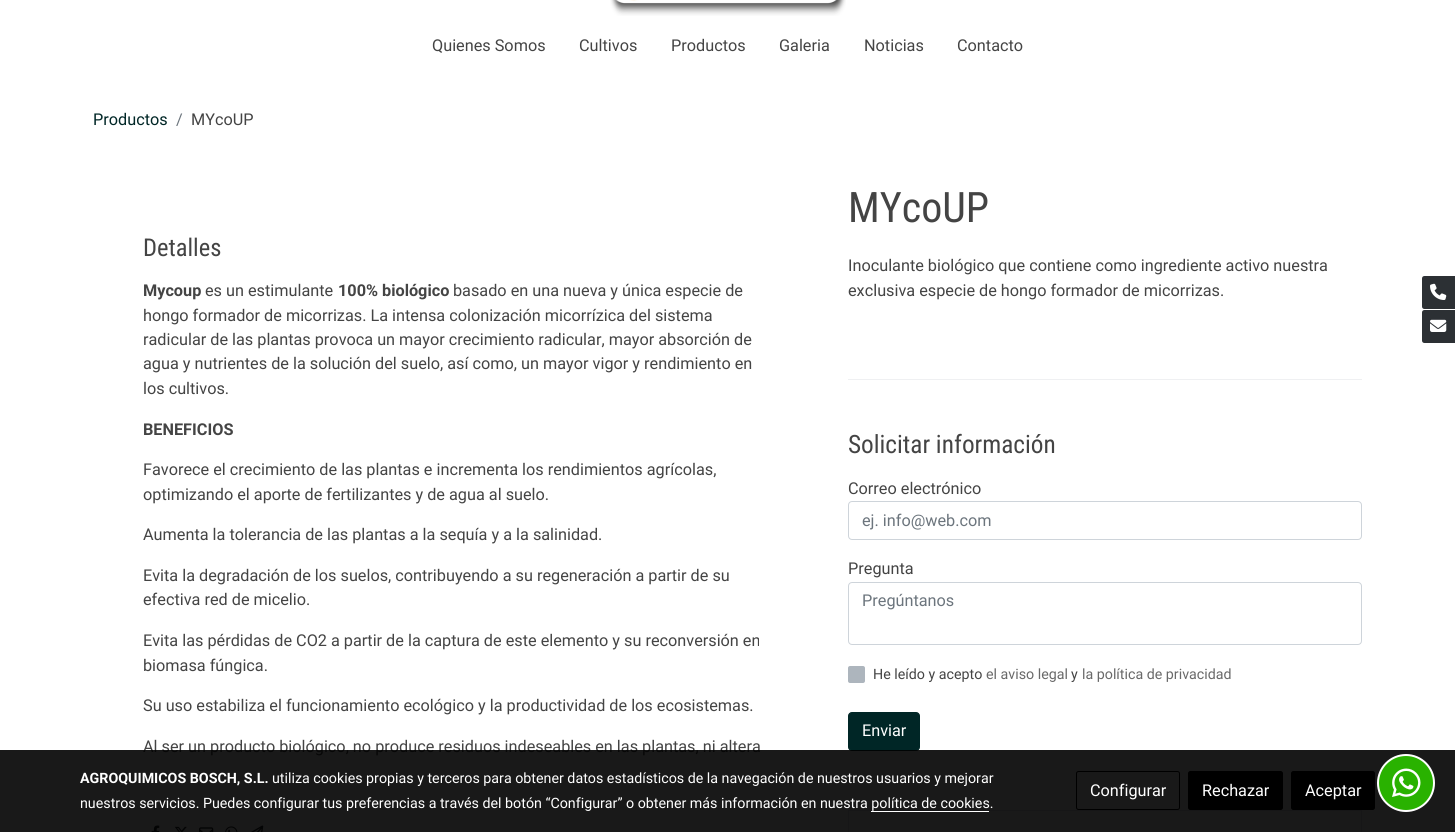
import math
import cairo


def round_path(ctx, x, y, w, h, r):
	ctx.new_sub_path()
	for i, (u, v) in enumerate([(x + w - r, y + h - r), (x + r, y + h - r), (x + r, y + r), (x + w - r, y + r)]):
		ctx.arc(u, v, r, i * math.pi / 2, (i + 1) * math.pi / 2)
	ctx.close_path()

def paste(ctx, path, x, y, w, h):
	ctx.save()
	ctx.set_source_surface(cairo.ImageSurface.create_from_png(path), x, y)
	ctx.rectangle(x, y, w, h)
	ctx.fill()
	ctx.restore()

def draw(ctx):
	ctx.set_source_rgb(1, 1, 1)
	ctx.paint()
	paste(ctx, 'media/1.png', 610, 0, 236, 16)
	ctx.select_font_face('Roboto')
	ctx.set_font_size(16.25)
	ctx.set_source_rgb(0.267, 0.267, 0.267)
	for x, y, s in [
		(432, 51, 'Quienes Somos'),
		(579, 51, 'Cultivos'),
		(671, 51, 'Productos'),
		(779, 51, 'Galeria'),
		(864, 51, 'Noticias'),
		(957, 51, 'Contacto'),
	]:
		ctx.move_to(x, y)
		ctx.show_text(s)
	ctx.set_source_rgb(0, 0.149, 0.149)
	ctx.move_to(93, 125)
	ctx.show_text('Productos')
	ctx.set_source_rgb(0.424, 0.459, 0.49)
	ctx.move_to(176, 125)
	ctx.show_text('/')
	ctx.set_source_rgb(0.267, 0.267, 0.267)
	ctx.move_to(191, 125)
	ctx.show_text('MYcoUP')
	ctx.select_font_face('Roboto Condensed')
	ctx.set_font_size(24.5)
	ctx.move_to(143, 256)
	ctx.show_text('Detalles')
	ctx.select_font_face('Roboto', cairo.FONT_SLANT_NORMAL, cairo.FONT_WEIGHT_BOLD)
	ctx.set_font_size(16.25)
	ctx.move_to(143, 296)
	ctx.show_text('Mycoup')
	ctx.select_font_face('Roboto')
	ctx.move_to(205, 296)
	ctx.show_text('es un estimulante')
	ctx.select_font_face('Roboto', cairo.FONT_SLANT_NORMAL, cairo.FONT_WEIGHT_BOLD)
	ctx.move_to(338, 296)
	ctx.show_text('100% biológico')
	ctx.select_font_face('Roboto')
	for x, y, s in [
		(453, 296, 'basado en una nueva y única especie de'),
		(143, 321, 'hongo formador de micorrizas. La intensa colonización micorrízica del sistema'),
		(143, 345, 'radicular de las plantas provoca un mayor crecimiento radicular, mayor absorción de'),
		(143, 369, 'agua y nutrientes de la solución del suelo, así como, un mayor vigor y rendimiento en'),
		(143, 394, 'los cultivos.'),
	]:
		ctx.move_to(x, y)
		ctx.show_text(s)
	ctx.select_font_face('Roboto', cairo.FONT_SLANT_NORMAL, cairo.FONT_WEIGHT_BOLD)
	ctx.move_to(143, 435)
	ctx.show_text('BENEFICIOS')
	ctx.select_font_face('Roboto')
	for x, y, s in [
		(143, 475, 'Favorece el crecimiento de las plantas e incrementa los rendimientos agrícolas,'),
		(143, 500, 'optimizando el aporte de fertilizantes y de agua al suelo.'),
		(143, 540, 'Aumenta la tolerancia de las plantas a la sequía y a la salinidad.'),
		(143, 581, 'Evita la degradación de los suelos, contribuyendo a su regeneración a partir de su'),
		(143, 605, 'efectiva red de micelio.'),
		(143, 646, 'Evita las pérdidas de CO2 a partir de la captura de este elemento y su reconversión en'),
		(143, 671, 'biomasa fúngica.'),
		(143, 711, 'Su uso estabiliza el funcionamiento ecológico y la productividad de los ecosistemas.'),
		(143, 752, 'Al ser un producto biológico, no produce residuos indeseables en las plantas, ni altera'),
	]:
		ctx.move_to(x, y)
		ctx.show_text(s)
	paste(ctx, 'media/2.png', 151, 825, 9, 7)
	paste(ctx, 'media/3.png', 174, 826, 13, 6)
	paste(ctx, 'media/4.png', 199, 827, 15, 5)
	paste(ctx, 'media/5.png', 225, 826, 13, 6)
	paste(ctx, 'media/6.png', 251, 825, 13, 7)
	ctx.select_font_face('Roboto Condensed')
	ctx.set_font_size(42)
	ctx.move_to(848, 222)
	ctx.show_text('MYcoUP')
	ctx.select_font_face('Roboto')
	ctx.set_font_size(16.25)
	ctx.move_to(848, 271)
	ctx.show_text('Inoculante biológico que contiene como ingrediente activo nuestra')
	ctx.move_to(848, 296)
	ctx.show_text('exclusiva especie de hongo formador de micorrizas.')
	ctx.set_source_rgb(0.937, 0.941, 0.949)
	ctx.rectangle(848, 379, 514, 1)
	ctx.fill()
	ctx.select_font_face('Roboto Condensed')
	ctx.set_font_size(25.25)
	ctx.set_source_rgb(0.267, 0.267, 0.267)
	ctx.move_to(848, 453)
	ctx.show_text('Solicitar información')
	ctx.select_font_face('Roboto')
	ctx.set_font_size(16.25)
	ctx.move_to(848, 494)
	ctx.show_text('Correo electrónico')
	round_path(ctx, 848.5, 501.5, 513, 38, 3.5)
	ctx.set_source_rgb(0.808, 0.831, 0.855)
	ctx.set_line_width(1)
	ctx.stroke()
	ctx.set_source_rgb(0.424, 0.459, 0.49)
	ctx.move_to(862, 526)
	ctx.show_text('ej. info@web.com')
	ctx.set_source_rgb(0.267, 0.267, 0.267)
	ctx.move_to(848, 574)
	ctx.show_text('Pregunta')
	round_path(ctx, 848.5, 582.5, 513, 62, 3.5)
	ctx.set_source_rgb(0.808, 0.831, 0.855)
	ctx.stroke()
	ctx.set_source_rgb(0.424, 0.459, 0.49)
	ctx.move_to(862, 606)
	ctx.show_text('Pregúntanos')
	ctx.set_source_rgb(0.678, 0.71, 0.741)
	round_path(ctx, 848, 666, 17, 17, 2)
	ctx.fill()
	ctx.set_font_size(14.25)
	ctx.set_source_rgb(0.267, 0.267, 0.267)
	ctx.move_to(873, 679)
	ctx.show_text('He leído y acepto')
	ctx.set_source_rgb(0.412, 0.412, 0.412)
	ctx.move_to(986, 679)
	ctx.show_text('el aviso legal')
	ctx.set_source_rgb(0.267, 0.267, 0.267)
	ctx.move_to(1071, 679)
	ctx.show_text('y')
	ctx.set_source_rgb(0.412, 0.412, 0.412)
	ctx.move_to(1082, 679)
	ctx.show_text('la política de privacidad')
	ctx.set_source_rgb(0, 0.149, 0.149)
	round_path(ctx, 848.5, 712.5, 71, 38, 3.5)
	ctx.fill_preserve()
	ctx.stroke()
	ctx.set_font_size(16.25)
	ctx.set_source_rgb(1, 1, 1)
	ctx.move_to(862, 736)
	ctx.show_text('Enviar')
	ctx.rectangle(848.5, 810.5, 513, 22)
	ctx.set_source_rgb(0.871, 0.886, 0.902)
	ctx.stroke()
	ctx.set_source_rgb(0.173, 0.188, 0.204)
	ctx.new_path()
	ctx.move_to(1424.5, 276)
	ctx.line_to(1455, 276)
	ctx.line_to(1455, 309)
	ctx.line_to(1424.5, 309)
	ctx.curve_to(1423, 309, 1422, 308, 1422, 306.5)
	ctx.line_to(1422, 278.5)
	ctx.curve_to(1422, 277, 1423, 276, 1424.5, 276)
	ctx.close_path()
	ctx.fill()
	paste(ctx, 'media/7.png', 1430, 283, 17, 17)
	ctx.new_path()
	ctx.move_to(1424.5, 310)
	ctx.line_to(1455, 310)
	ctx.line_to(1455, 343)
	ctx.line_to(1424.5, 343)
	ctx.curve_to(1423, 343, 1422, 342, 1422, 340.5)
	ctx.line_to(1422, 312.5)
	ctx.curve_to(1422, 311, 1423, 310, 1424.5, 310)
	ctx.close_path()
	ctx.fill()
	paste(ctx, 'media/8.png', 1430, 319, 17, 13)
	ctx.set_source_rgba(0, 0, 0, 0.9)
	ctx.rectangle(0, 750, 1455, 82)
	ctx.fill()
	ctx.select_font_face('Roboto', cairo.FONT_SLANT_NORMAL, cairo.FONT_WEIGHT_BOLD)
	ctx.set_font_size(14.25)
	ctx.set_source_rgb(1, 1, 1)
	ctx.move_to(80, 783)
	ctx.show_text('AGROQUIMICOS BOSCH, S.L.')
	ctx.select_font_face('Roboto')
	ctx.move_to(272, 783)
	ctx.show_text('utiliza cookies propias y terceros para obtener datos estadísticos de la navegación de nuestros usuarios y mejorar')
	ctx.move_to(80, 808)
	ctx.show_text('nuestros servicios. Puedes configurar tus preferencias a través del botón “Configurar” o obtener más información en nuestra política de cookies.')
	ctx.rectangle(871, 811, 118, 1)
	ctx.fill()
	round_path(ctx, 1076.5, 771.5, 103, 38, 2)
	ctx.set_source_rgb(0, 0, 0)
	ctx.stroke()
	ctx.set_font_size(16.25)
	ctx.set_source_rgb(1, 1, 1)
	ctx.move_to(1090, 796)
	ctx.show_text('Configurar')
	ctx.set_source_rgb(0, 0, 0)
	round_path(ctx, 1188.5, 771.5, 94, 38, 2)
	ctx.fill_preserve()
	ctx.stroke()
	ctx.set_source_rgb(1, 1, 1)
	ctx.move_to(1202, 796)
	ctx.show_text('Rechazar')
	ctx.set_source_rgb(0, 0, 0)
	round_path(ctx, 1291.5, 771.5, 83, 38, 2)
	ctx.fill_preserve()
	ctx.stroke()
	ctx.set_source_rgb(1, 1, 1)
	ctx.move_to(1305, 796)
	ctx.show_text('Aceptar')
	ctx.set_source_rgb(0.161, 0.698, 0)
	ctx.new_path()
	ctx.arc(1406, 783, 28, 0, 2 * math.pi)
	ctx.fill_preserve()
	ctx.set_source_rgb(1, 1, 1)
	ctx.set_line_width(2)
	ctx.stroke()
	paste(ctx, 'media/9.png', 1392, 768, 29, 29)


surface = cairo.ImageSurface(cairo.FORMAT_RGB24, 1455, 832)
ctx = cairo.Context(surface)
options = cairo.FontOptions()
options.set_hint_metrics(cairo.HINT_METRICS_OFF)
options.set_hint_style(cairo.HINT_STYLE_NONE)
ctx.set_font_options(options)
ctx.set_miter_limit(4)
draw(ctx)
surface.write_to_png('image.png')
